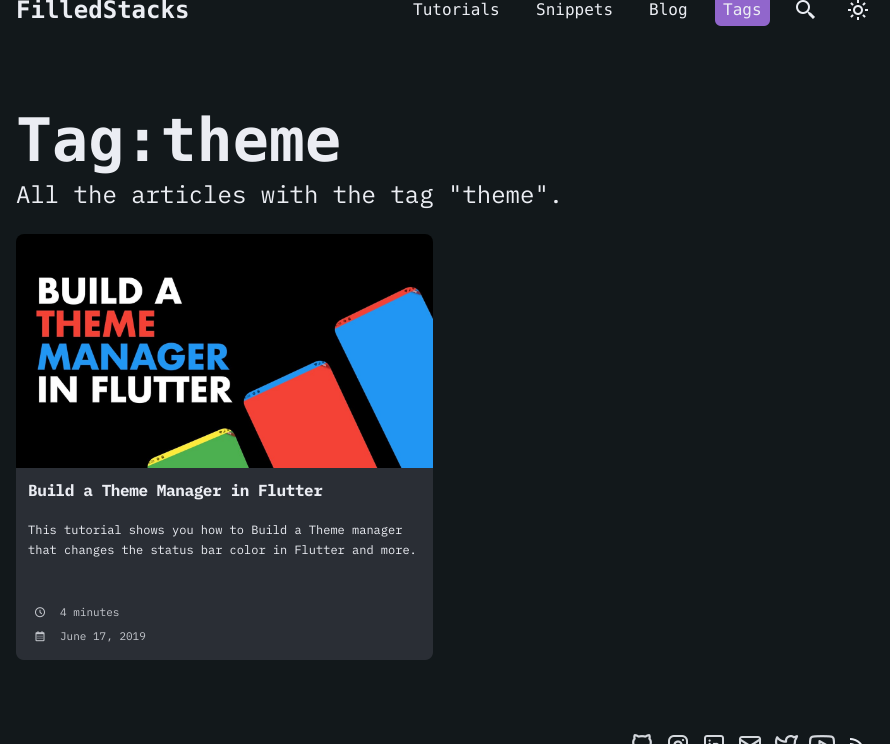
import math
import cairo


def write_spaced(ctx, x, y, s, letter, word):
	ctx.move_to(x, y)
	for ch in s:
		ctx.show_text(ch)
		ctx.rel_move_to(letter + word * (ch == ' '), 0)

def round_path(ctx, x, y, w, h, r):
	ctx.new_sub_path()
	for i, (u, v) in enumerate([(x + w - r, y + h - r), (x + r, y + h - r), (x + r, y + r), (x + w - r, y + r)]):
		ctx.arc(u, v, r, i * math.pi / 2, (i + 1) * math.pi / 2)
	ctx.close_path()

def paste(ctx, path, x, y, w, h):
	ctx.save()
	ctx.set_source_surface(cairo.ImageSurface.create_from_png(path), x, y)
	ctx.rectangle(x, y, w, h)
	ctx.fill()
	ctx.restore()

def draw(ctx):
	ctx.set_source_rgb(0.071, 0.094, 0.106)
	ctx.paint()
	ctx.select_font_face('DejaVu Sans Mono', cairo.FONT_SLANT_NORMAL, cairo.FONT_WEIGHT_BOLD)
	ctx.set_font_size(24)
	ctx.set_source_rgb(0.918, 0.929, 0.953)
	ctx.move_to(16, 18)
	ctx.show_text('FilledStacks')
	ctx.select_font_face('DejaVu Sans Mono')
	ctx.set_font_size(16)
	for x, y, s in [
		(413, 15, 'Tutorials'),
		(536, 15, 'Snippets'),
		(649, 15, 'Blog'),
	]:
		ctx.move_to(x, y)
		ctx.show_text(s)
	ctx.set_source_rgb(0.569, 0.4, 0.8)
	round_path(ctx, 715, -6, 55, 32, 6)
	ctx.fill()
	ctx.set_source_rgb(0.918, 0.929, 0.953)
	ctx.move_to(723, 15)
	ctx.show_text('Tags')
	paste(ctx, 'media/1.png', 796, 0, 19, 19)
	paste(ctx, 'media/2.png', 848, 0, 20, 20)
	ctx.select_font_face('DejaVu Sans Mono', cairo.FONT_SLANT_NORMAL, cairo.FONT_WEIGHT_BOLD)
	ctx.set_font_size(60)
	ctx.move_to(16, 161)
	ctx.show_text('Tag:theme')
	ctx.select_font_face('IBM Plex Mono')
	ctx.set_font_size(24)
	ctx.move_to(16, 203)
	ctx.show_text('All the articles with the tag "theme".')
	paste(ctx, 'media/3.png', 16, 234, 417, 234)
	ctx.set_source_rgb(0.165, 0.18, 0.208)
	ctx.new_path()
	ctx.move_to(16, 468)
	ctx.line_to(433, 468)
	ctx.line_to(433, 652)
	ctx.curve_to(433, 656.5, 429.5, 660, 425, 660)
	ctx.line_to(24, 660)
	ctx.curve_to(19.5, 660, 16, 656.5, 16, 652)
	ctx.close_path()
	ctx.fill()
	ctx.select_font_face('IBM Plex Mono', cairo.FONT_SLANT_NORMAL, cairo.FONT_WEIGHT_BOLD)
	ctx.set_font_size(16)
	ctx.set_source_rgb(0.918, 0.929, 0.953)
	write_spaced(ctx, 28, 496, 'Build a Theme Manager in Flutter', -0.4, 0)
	ctx.select_font_face('IBM Plex Mono')
	ctx.set_font_size(12)
	ctx.move_to(28, 534)
	ctx.show_text('This tutorial shows you how to Build a Theme manager')
	ctx.move_to(28, 554)
	ctx.show_text('that changes the status bar color in Flutter and more.')
	paste(ctx, 'media/4.png', 35, 607, 10, 11)
	ctx.set_font_size(11)
	ctx.set_source_rgb(0.769, 0.78, 0.804)
	ctx.move_to(60, 616)
	ctx.show_text('4 minutes')
	paste(ctx, 'media/5.png', 35, 631, 10, 11)
	ctx.move_to(60, 640)
	ctx.show_text('June 17, 2019')
	paste(ctx, 'media/6.png', 632, 734, 20, 10)
	round_path(ctx, 669, 736, 18, 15, 5)
	ctx.set_source_rgb(0.831, 0.847, 0.867)
	ctx.stroke()
	ctx.arc(678, 745, 3.5, 0, 2 * math.pi)
	ctx.set_line_width(2.2)
	ctx.stroke()
	ctx.new_path()
	ctx.move_to(683, 740)
	ctx.line_to(683, 740)
	ctx.set_line_cap(cairo.LINE_CAP_ROUND)
	ctx.set_line_join(cairo.LINE_JOIN_ROUND)
	ctx.stroke()
	paste(ctx, 'media/7.png', 704, 735, 20, 9)
	round_path(ctx, 740, 737, 20, 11, 2)
	ctx.set_line_width(2)
	ctx.set_line_cap(cairo.LINE_CAP_BUTT)
	ctx.set_line_join(cairo.LINE_JOIN_MITER)
	ctx.stroke()
	ctx.new_path()
	ctx.move_to(740, 739.5)
	ctx.line_to(750, 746)
	ctx.line_to(760, 739.5)
	ctx.set_line_width(2.2)
	ctx.set_line_cap(cairo.LINE_CAP_ROUND)
	ctx.set_line_join(cairo.LINE_JOIN_ROUND)
	ctx.stroke()
	paste(ctx, 'media/8.png', 774, 735, 25, 9)
	paste(ctx, 'media/9.png', 809, 735, 26, 9)
	paste(ctx, 'media/10.png', 850, 738, 12, 6)


surface = cairo.ImageSurface(cairo.FORMAT_RGB24, 890, 744)
ctx = cairo.Context(surface)
options = cairo.FontOptions()
options.set_hint_metrics(cairo.HINT_METRICS_OFF)
options.set_hint_style(cairo.HINT_STYLE_NONE)
ctx.set_font_options(options)
ctx.set_miter_limit(4)
draw(ctx)
surface.write_to_png('image.png')
